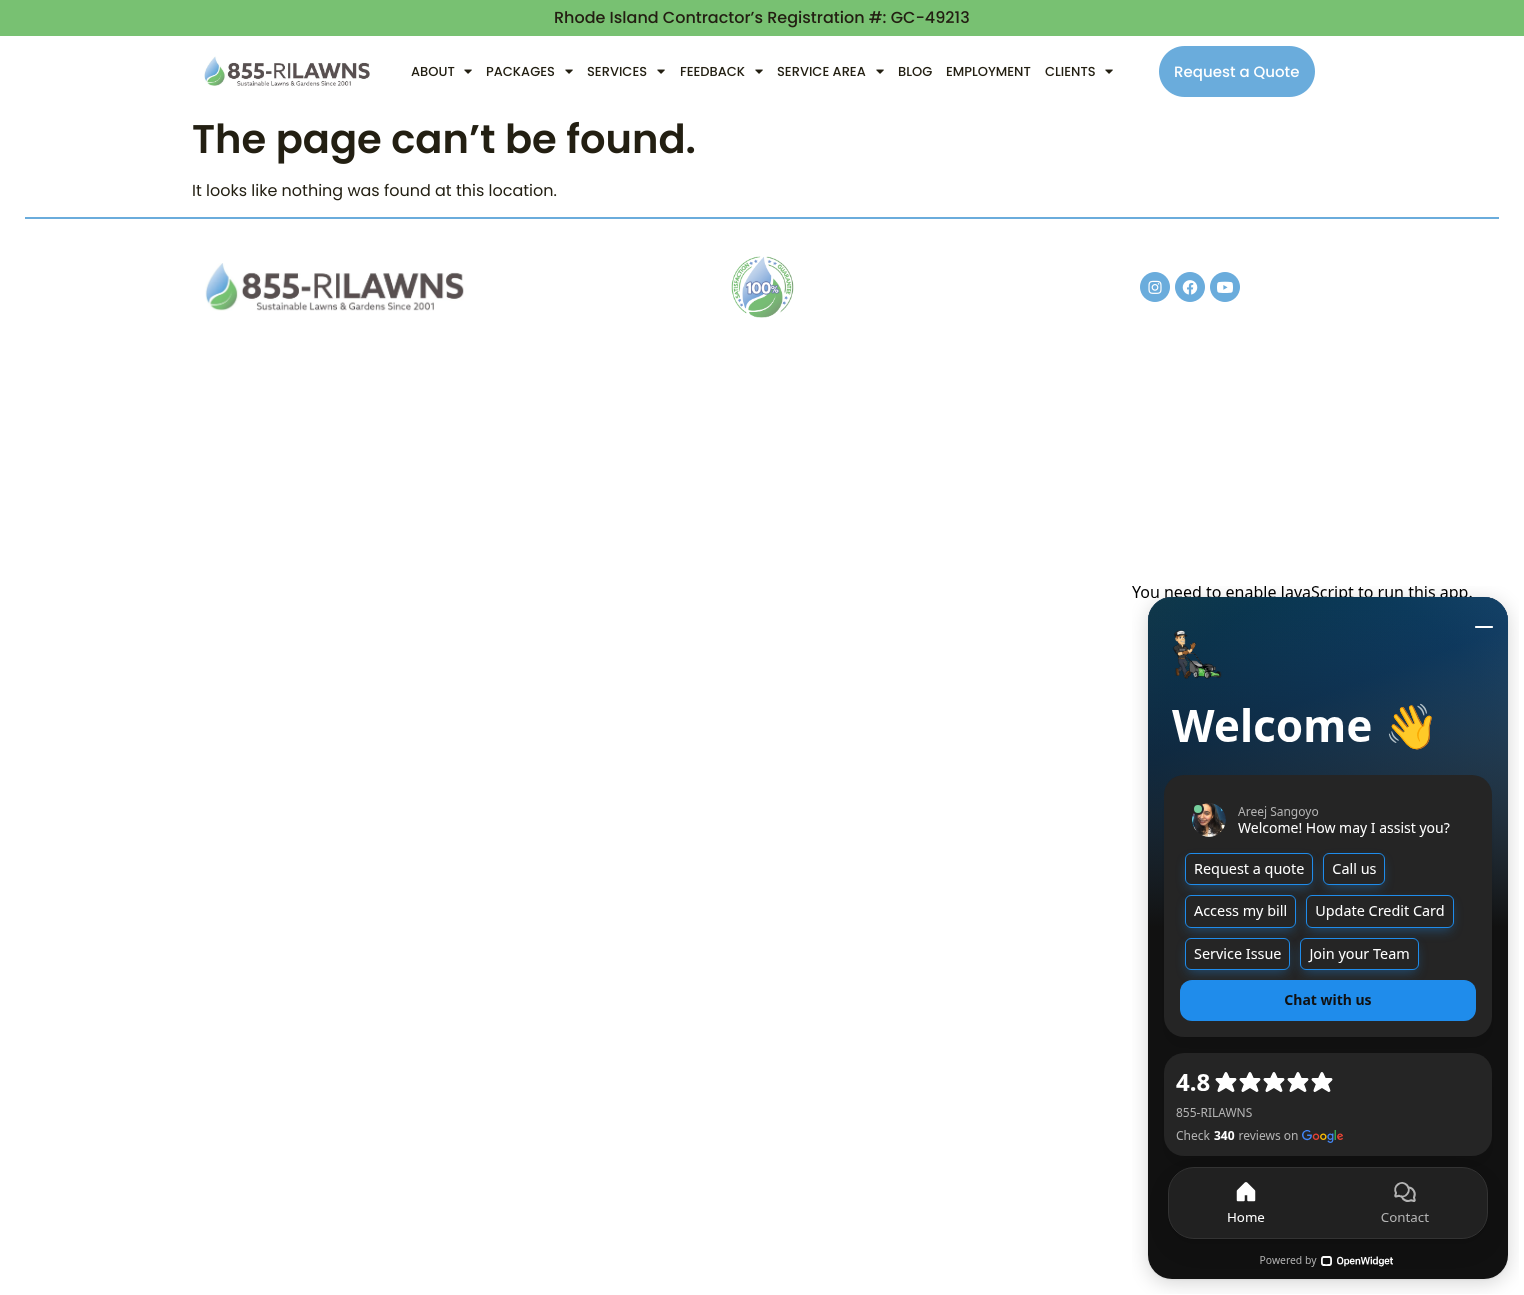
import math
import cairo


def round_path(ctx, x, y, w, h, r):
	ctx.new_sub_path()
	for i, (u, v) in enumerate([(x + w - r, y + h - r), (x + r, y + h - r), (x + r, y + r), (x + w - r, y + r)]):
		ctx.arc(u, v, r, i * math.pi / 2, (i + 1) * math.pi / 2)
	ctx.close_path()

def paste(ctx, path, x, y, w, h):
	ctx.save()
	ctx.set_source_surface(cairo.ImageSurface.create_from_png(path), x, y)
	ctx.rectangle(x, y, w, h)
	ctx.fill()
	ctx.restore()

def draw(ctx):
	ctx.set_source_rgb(1, 1, 1)
	ctx.paint()
	ctx.set_source_rgb(0.471, 0.757, 0.447)
	ctx.rectangle(0, 0, 1524, 36)
	ctx.fill()
	ctx.select_font_face('Poppins Medium')
	ctx.set_font_size(16)
	ctx.set_source_rgb(0.137, 0.122, 0.071)
	ctx.move_to(554, 23)
	ctx.show_text('Rhode Island Contractor’s Registration #: GC-49213')
	paste(ctx, 'media/1.png', 204, 56, 166, 30)
	ctx.set_font_size(13)
	ctx.move_to(411, 76)
	ctx.show_text('ABOUT')
	paste(ctx, 'media/2.png', 464, 69, 8, 5)
	ctx.move_to(486, 76)
	ctx.show_text('PACKAGES')
	paste(ctx, 'media/2.png', 565, 69, 8, 5)
	ctx.move_to(587, 76)
	ctx.show_text('SERVICES')
	paste(ctx, 'media/2.png', 657, 69, 8, 5)
	ctx.move_to(680, 76)
	ctx.show_text('FEEDBACK')
	paste(ctx, 'media/2.png', 755, 69, 8, 5)
	ctx.move_to(777, 76)
	ctx.show_text('SERVICE AREA')
	paste(ctx, 'media/2.png', 876, 69, 8, 5)
	for x, y, s in [
		(898, 76, 'BLOG'),
		(946, 76, 'EMPLOYMENT'),
		(1045, 76, 'CLIENTS'),
	]:
		ctx.move_to(x, y)
		ctx.show_text(s)
	paste(ctx, 'media/2.png', 1105, 69, 8, 5)
	ctx.set_source_rgb(0.416, 0.675, 0.863)
	round_path(ctx, 1159, 46, 156, 51, 25.5)
	ctx.fill()
	ctx.set_font_size(15)
	ctx.set_source_rgb(1, 1, 1)
	ctx.move_to(1174, 77)
	ctx.show_text('Request a Quote')
	ctx.select_font_face('Poppins SemiBold')
	ctx.set_font_size(40)
	ctx.set_source_rgb(0.137, 0.122, 0.071)
	ctx.move_to(192, 153)
	ctx.show_text('The page can’t be found.')
	ctx.select_font_face('Poppins')
	ctx.set_font_size(16)
	ctx.move_to(192, 196)
	ctx.show_text('It looks like nothing was found at this location.')
	ctx.set_source_rgb(0.416, 0.675, 0.863)
	ctx.rectangle(25, 217, 1474, 2)
	ctx.fill()
	paste(ctx, 'media/3.png', 205, 263, 259, 48)
	paste(ctx, 'media/4.png', 731, 256, 63, 62)
	ctx.arc(1155, 287, 15, 0, 2 * math.pi)
	ctx.fill()
	paste(ctx, 'media/5.png', 1148, 280, 14, 14)
	ctx.arc(1190, 287, 15, 0, 2 * math.pi)
	ctx.fill()
	paste(ctx, 'media/6.png', 1182, 280, 16, 15)
	ctx.arc(1225, 287, 15, 0, 2 * math.pi)
	ctx.fill()
	paste(ctx, 'media/7.png', 1217, 281, 16, 12)
	paste(ctx, 'media/8.png', 1132, 586, 387, 708)


surface = cairo.ImageSurface(cairo.FORMAT_RGB24, 1524, 1295)
ctx = cairo.Context(surface)
options = cairo.FontOptions()
options.set_hint_metrics(cairo.HINT_METRICS_OFF)
options.set_hint_style(cairo.HINT_STYLE_NONE)
ctx.set_font_options(options)
ctx.set_miter_limit(4)
draw(ctx)
surface.write_to_png('image.png')
